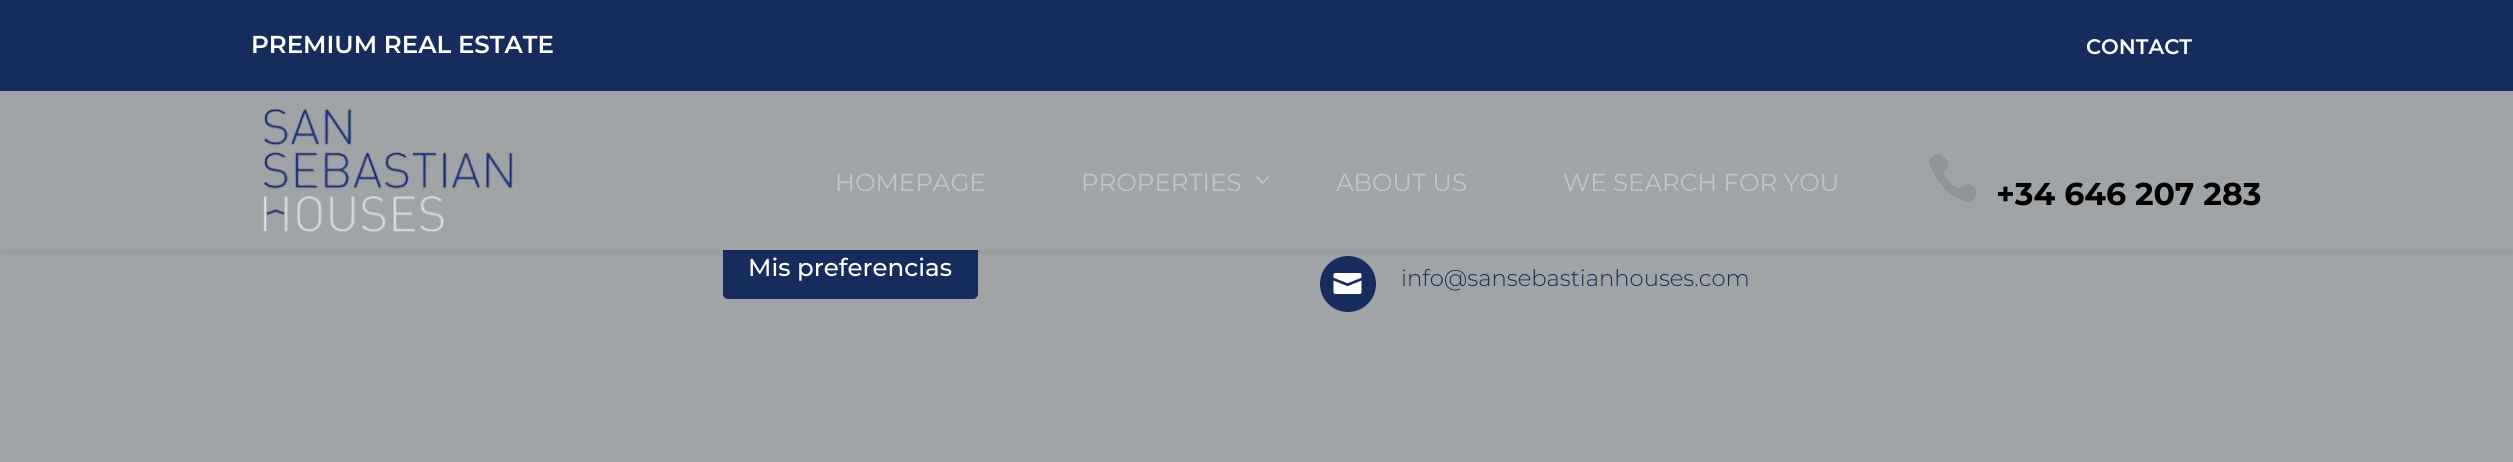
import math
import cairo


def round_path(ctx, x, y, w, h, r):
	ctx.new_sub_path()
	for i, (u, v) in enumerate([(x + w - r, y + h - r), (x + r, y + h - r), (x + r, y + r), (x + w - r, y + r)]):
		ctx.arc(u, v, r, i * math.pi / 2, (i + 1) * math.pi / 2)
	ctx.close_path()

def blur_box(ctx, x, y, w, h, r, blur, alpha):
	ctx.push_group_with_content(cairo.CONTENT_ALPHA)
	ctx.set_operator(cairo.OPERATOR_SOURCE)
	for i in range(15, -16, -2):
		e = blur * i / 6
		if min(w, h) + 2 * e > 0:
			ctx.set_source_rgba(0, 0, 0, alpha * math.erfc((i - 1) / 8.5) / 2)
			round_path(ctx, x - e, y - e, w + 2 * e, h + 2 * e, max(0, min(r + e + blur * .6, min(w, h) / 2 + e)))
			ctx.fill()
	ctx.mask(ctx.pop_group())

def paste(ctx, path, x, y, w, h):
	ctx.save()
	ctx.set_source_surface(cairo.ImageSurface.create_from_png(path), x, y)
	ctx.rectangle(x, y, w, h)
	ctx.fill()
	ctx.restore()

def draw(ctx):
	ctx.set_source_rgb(0.627, 0.643, 0.655)
	ctx.paint()
	ctx.set_source_rgb(0.086, 0.173, 0.365)
	ctx.rectangle(0, 0, 2513, 91)
	ctx.fill()
	ctx.select_font_face('Montserrat SemiBold')
	ctx.set_font_size(24.5)
	ctx.set_source_rgb(1, 1, 1)
	ctx.move_to(251, 53)
	ctx.show_text('PREMIUM REAL ESTATE')
	ctx.set_font_size(21)
	ctx.move_to(2086, 54)
	ctx.show_text('CONTACT')
	ctx.set_source_rgb(0.086, 0.173, 0.365)
	round_path(ctx, 724, 239, 253, 59, 4)
	ctx.fill_preserve()
	ctx.stroke()
	ctx.arc(1348, 284, 28, 0, 2 * math.pi)
	ctx.fill()
	ctx.set_source_rgb(0, 0, 0)
	blur_box(ctx, 0, 91, 2513, 159, 0, 6, 0.1)
	ctx.set_source_rgb(0.627, 0.643, 0.655)
	ctx.rectangle(0, 91, 2513, 159)
	ctx.fill()
	paste(ctx, 'media/1.png', 259, 108, 254, 124)
	ctx.select_font_face('Montserrat')
	ctx.set_font_size(24.5)
	ctx.set_source_rgb(0.769, 0.769, 0.769)
	ctx.move_to(835, 191)
	ctx.show_text('HOMEPAGE')
	ctx.move_to(1081, 191)
	ctx.show_text('PROPERTIES')
	paste(ctx, 'media/2.png', 1256, 176, 13, 8)
	ctx.move_to(1336, 191)
	ctx.show_text('ABOUT US')
	ctx.move_to(1563, 191)
	ctx.show_text('WE SEARCH FOR YOU')
	paste(ctx, 'media/3.png', 1929, 154, 48, 49)
	ctx.select_font_face('Montserrat', cairo.FONT_SLANT_NORMAL, cairo.FONT_WEIGHT_BOLD)
	ctx.set_font_size(31.5)
	ctx.set_source_rgb(0, 0, 0)
	ctx.move_to(1996, 205)
	ctx.show_text('+34 646 207 283')
	ctx.select_font_face('Montserrat Medium')
	ctx.set_font_size(24.5)
	ctx.set_source_rgb(1, 1, 1)
	ctx.move_to(748, 276)
	ctx.show_text('Mis preferencias')
	paste(ctx, 'media/4.png', 1333, 273, 29, 21)
	ctx.select_font_face('Montserrat Light')
	ctx.set_font_size(22.75)
	ctx.set_source_rgb(0.086, 0.173, 0.365)
	ctx.move_to(1401, 286)
	ctx.show_text('info@sansebastianhouses.com')


surface = cairo.ImageSurface(cairo.FORMAT_RGB24, 2513, 462)
ctx = cairo.Context(surface)
options = cairo.FontOptions()
options.set_hint_metrics(cairo.HINT_METRICS_OFF)
options.set_hint_style(cairo.HINT_STYLE_NONE)
ctx.set_font_options(options)
ctx.set_miter_limit(4)
draw(ctx)
surface.write_to_png('image.png')
